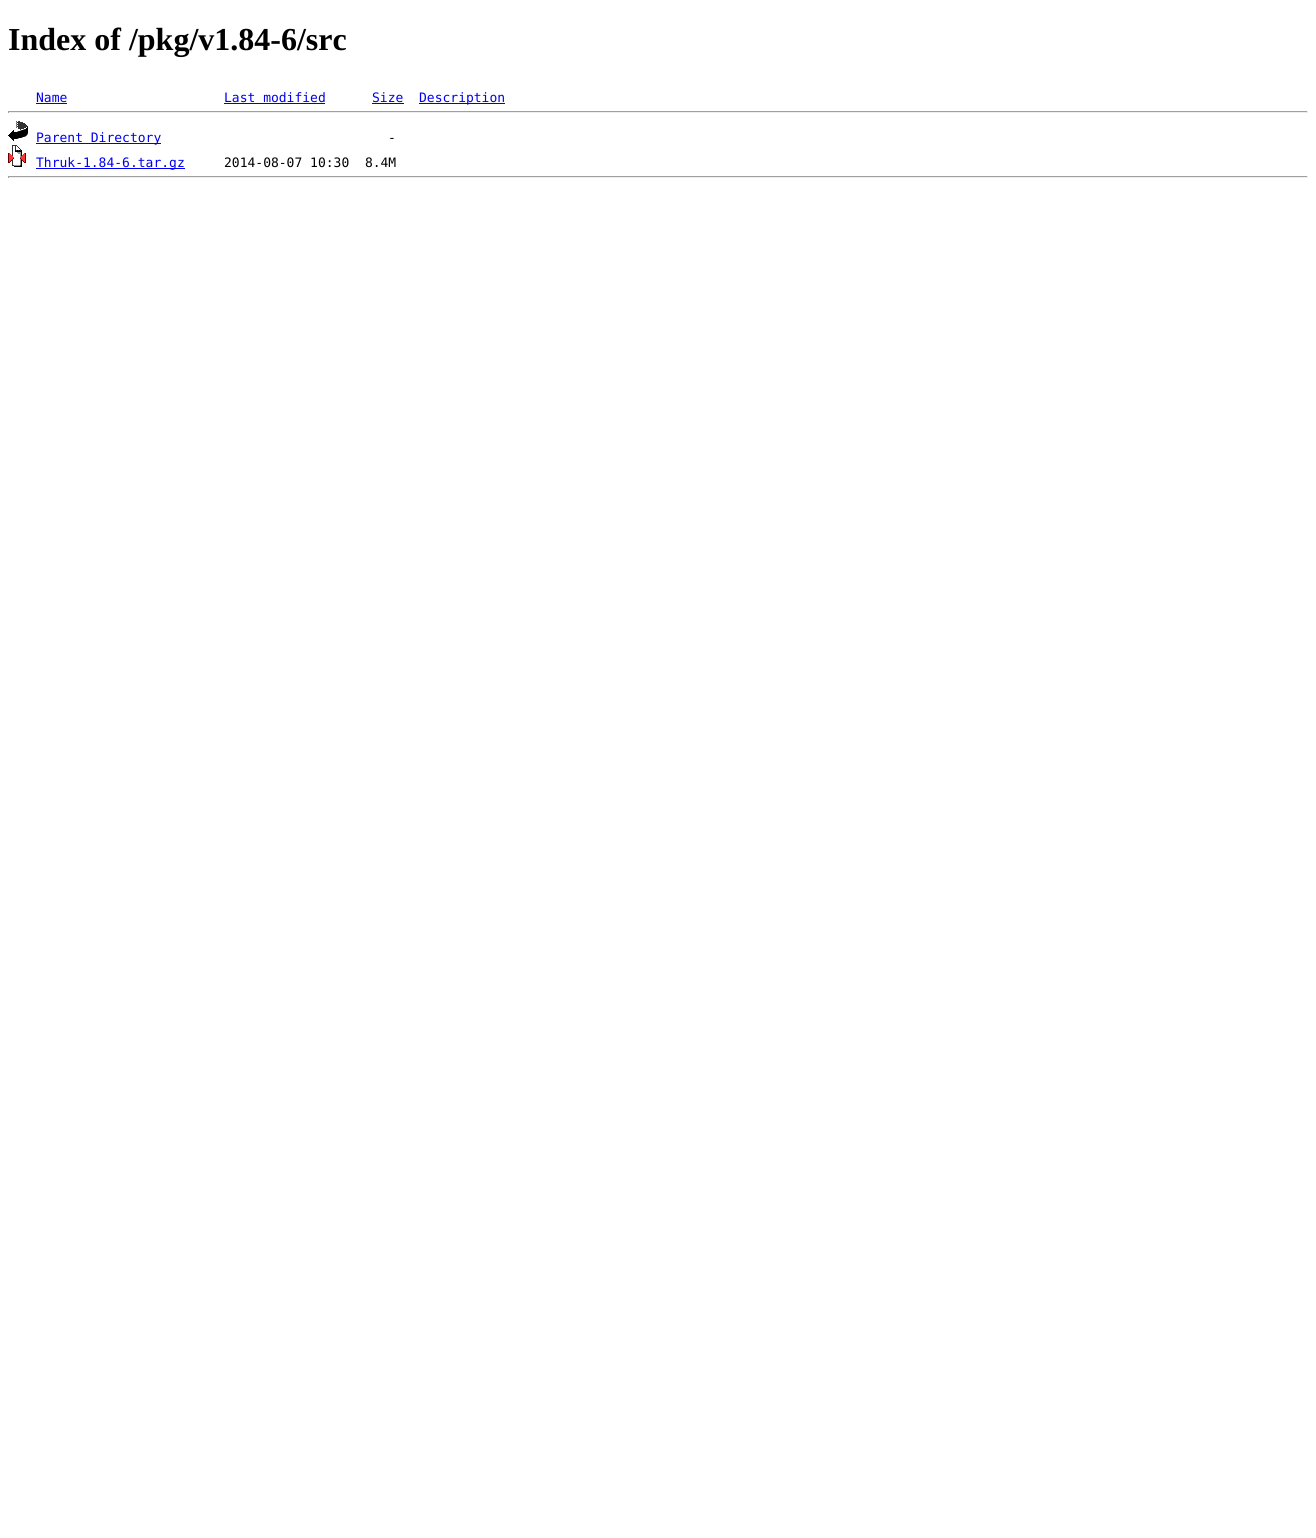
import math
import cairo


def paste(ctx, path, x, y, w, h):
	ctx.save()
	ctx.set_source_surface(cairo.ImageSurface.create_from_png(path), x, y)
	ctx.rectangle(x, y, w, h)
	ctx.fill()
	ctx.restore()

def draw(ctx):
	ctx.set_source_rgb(1, 1, 1)
	ctx.paint()
	ctx.select_font_face('Liberation Serif', cairo.FONT_SLANT_NORMAL, cairo.FONT_WEIGHT_BOLD)
	ctx.set_font_size(32)
	ctx.set_source_rgb(0, 0, 0)
	ctx.move_to(8, 50)
	ctx.show_text('Index of /pkg/v1.84-6/src')
	ctx.select_font_face('DejaVu Sans Mono')
	ctx.set_font_size(13)
	ctx.set_source_rgb(0, 0, 0.933)
	ctx.move_to(36, 102)
	ctx.show_text('Name')
	ctx.rectangle(36, 103, 31, 1)
	ctx.fill()
	ctx.move_to(224, 102)
	ctx.show_text('Last modified')
	ctx.rectangle(224, 103, 101, 1)
	ctx.fill()
	ctx.move_to(372, 102)
	ctx.show_text('Size')
	ctx.rectangle(372, 103, 32, 1)
	ctx.fill()
	ctx.rectangle(419, 103, 86, 1)
	ctx.fill()
	ctx.move_to(419, 102)
	ctx.show_text('Description')
	ctx.set_source_rgb(0.624, 0.624, 0.624)
	ctx.rectangle(8, 111, 1300, 1)
	ctx.fill()
	ctx.set_source_rgb(0.933, 0.933, 0.933)
	ctx.rectangle(1307, 111, 1, 2)
	ctx.rectangle(8, 112, 1300, 1)
	ctx.fill()
	ctx.set_source_rgb(0.624, 0.624, 0.624)
	ctx.rectangle(8, 111, 1, 2)
	ctx.fill()
	paste(ctx, 'media/1.png', 8, 121, 20, 20)
	ctx.set_source_rgb(0, 0, 0.933)
	ctx.rectangle(36, 143, 125, 1)
	ctx.fill()
	ctx.move_to(36, 142)
	ctx.show_text('Parent Directory')
	ctx.set_source_rgb(0, 0, 0)
	ctx.move_to(388, 142)
	ctx.show_text('-')
	paste(ctx, 'media/2.png', 8, 145, 18, 22)
	ctx.set_source_rgb(0, 0, 0.933)
	ctx.rectangle(36, 168, 149, 1)
	ctx.fill()
	ctx.move_to(36, 167)
	ctx.show_text('Thruk-1.84-6.tar.gz')
	ctx.set_source_rgb(0, 0, 0)
	ctx.move_to(224, 167)
	ctx.show_text('2014-08-07 10:30  8.4M')
	ctx.set_source_rgb(0.624, 0.624, 0.624)
	ctx.rectangle(8, 176, 1300, 1)
	ctx.fill()
	ctx.set_source_rgb(0.933, 0.933, 0.933)
	ctx.rectangle(1307, 176, 1, 2)
	ctx.rectangle(8, 177, 1300, 1)
	ctx.fill()
	ctx.set_source_rgb(0.624, 0.624, 0.624)
	ctx.rectangle(8, 176, 1, 2)
	ctx.fill()


surface = cairo.ImageSurface(cairo.FORMAT_RGB24, 1316, 1538)
ctx = cairo.Context(surface)
options = cairo.FontOptions()
options.set_hint_metrics(cairo.HINT_METRICS_OFF)
options.set_hint_style(cairo.HINT_STYLE_NONE)
ctx.set_font_options(options)
ctx.set_miter_limit(4)
draw(ctx)
surface.write_to_png('image.png')
